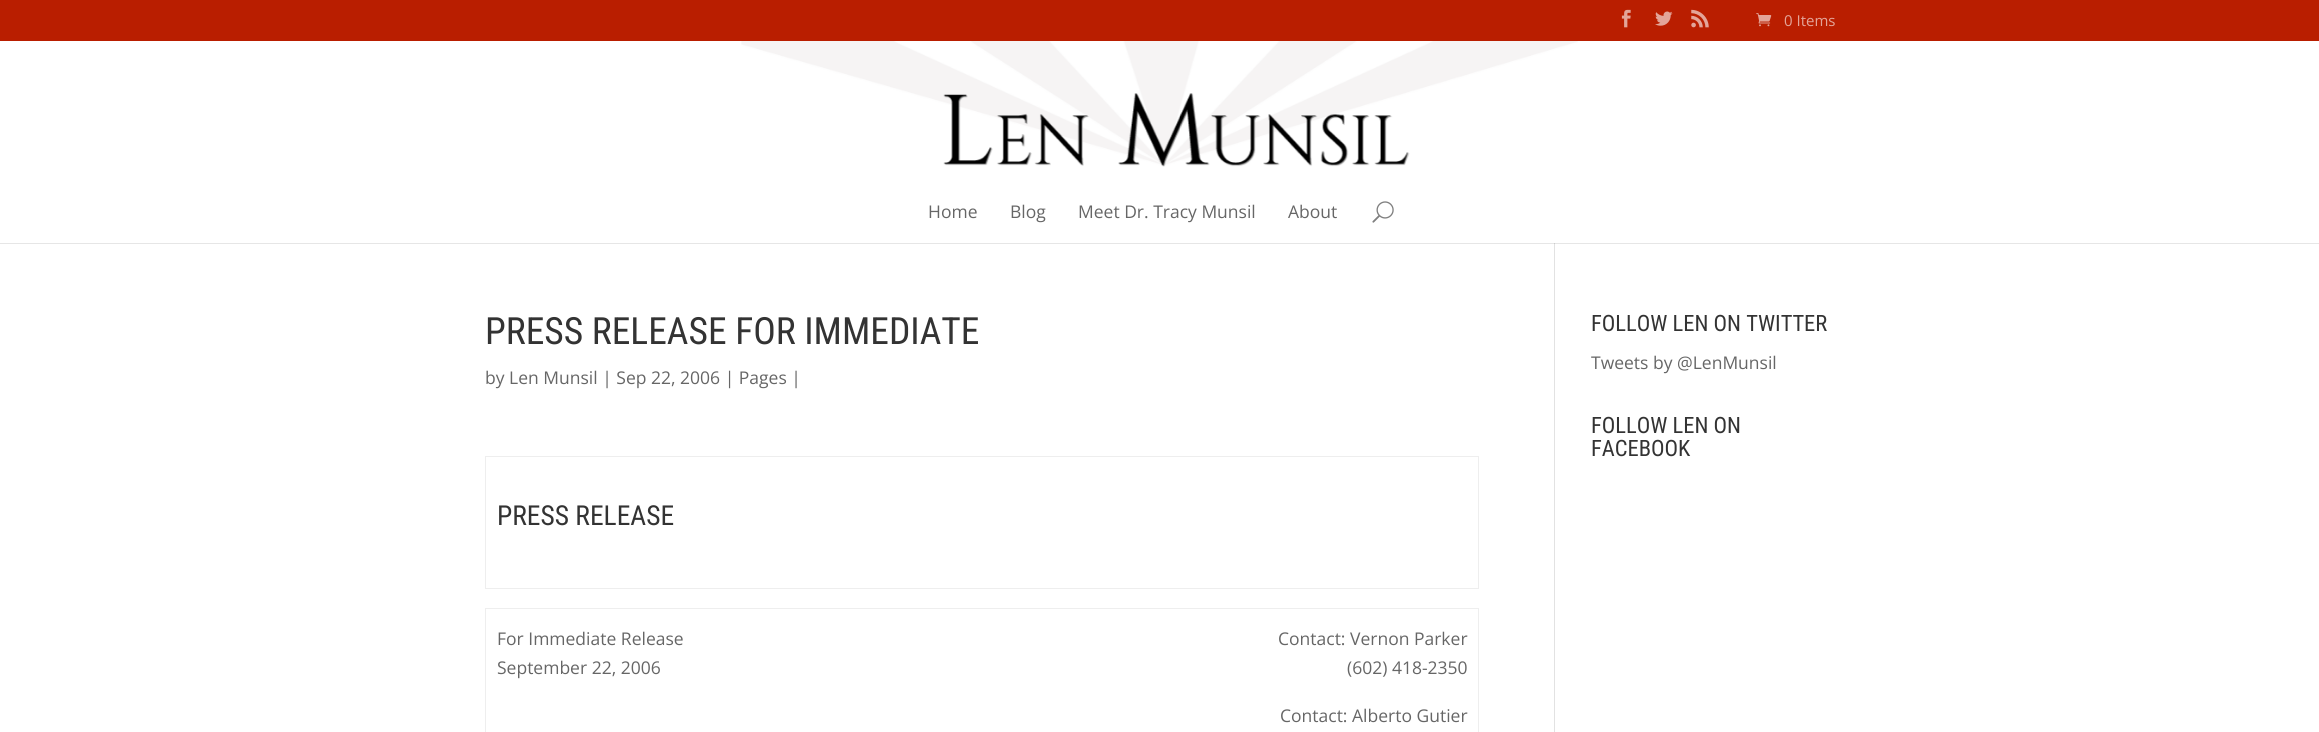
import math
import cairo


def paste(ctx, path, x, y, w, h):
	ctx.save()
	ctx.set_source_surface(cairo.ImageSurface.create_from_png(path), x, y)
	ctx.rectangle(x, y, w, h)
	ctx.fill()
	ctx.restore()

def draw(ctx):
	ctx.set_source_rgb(1, 1, 1)
	ctx.paint()
	ctx.set_source_rgb(0.725, 0.118, 0)
	ctx.rectangle(0, 0, 2319, 41)
	ctx.fill()
	paste(ctx, 'media/1.png', 1621, 9, 10, 19)
	paste(ctx, 'media/2.png', 1655, 11, 18, 15)
	paste(ctx, 'media/3.png', 1691, 9, 18, 19)
	paste(ctx, 'media/4.png', 1756, 13, 16, 14)
	ctx.select_font_face('Open Sans')
	ctx.set_font_size(15)
	ctx.set_source_rgb(0.89, 0.647, 0.6)
	ctx.move_to(1784, 26)
	ctx.show_text('0 Items')
	ctx.set_source_rgb(0.902, 0.902, 0.902)
	ctx.rectangle(0, 243, 2319, 1)
	ctx.fill()
	ctx.set_source_rgb(0.886, 0.886, 0.886)
	ctx.rectangle(1554, 240, 1, 492)
	ctx.fill()
	ctx.set_source_rgb(0.796, 0.796, 0.796)
	ctx.rectangle(1554, 242, 1, 2)
	ctx.fill()
	ctx.set_source_rgb(1, 1, 1)
	ctx.rectangle(1554, 240, 1, 3)
	ctx.fill()
	paste(ctx, 'media/5.png', 741, 41, 837, 126)
	ctx.set_font_size(17.5)
	ctx.set_source_rgb(0.4, 0.4, 0.4)
	for x, y, s in [
		(928, 218, 'Home'),
		(1010, 218, 'Blog'),
		(1078, 218, 'Meet Dr. Tracy Munsil'),
		(1288, 218, 'About'),
	]:
		ctx.move_to(x, y)
		ctx.show_text(s)
	paste(ctx, 'media/6.png', 1372, 201, 22, 22)
	ctx.select_font_face('Roboto Condensed')
	ctx.set_font_size(37.5)
	ctx.set_source_rgb(0.2, 0.2, 0.2)
	ctx.move_to(485, 344)
	ctx.show_text('PRESS RELEASE FOR IMMEDIATE')
	ctx.select_font_face('Open Sans')
	ctx.set_font_size(17.5)
	ctx.set_source_rgb(0.4, 0.4, 0.4)
	ctx.move_to(485, 384)
	ctx.show_text('by Len Munsil | Sep 22, 2006 | Pages |')
	ctx.set_source_rgb(0.933, 0.933, 0.933)
	ctx.rectangle(485, 456, 994, 1)
	ctx.rectangle(1478, 456, 1, 133)
	ctx.rectangle(485, 588, 994, 1)
	ctx.rectangle(485, 456, 1, 133)
	ctx.fill()
	ctx.select_font_face('Roboto Condensed')
	ctx.set_font_size(27.5)
	ctx.set_source_rgb(0.2, 0.2, 0.2)
	ctx.move_to(497, 525)
	ctx.show_text('PRESS RELEASE')
	ctx.set_source_rgb(0.933, 0.933, 0.933)
	ctx.rectangle(485, 608, 994, 1)
	ctx.rectangle(1478, 608, 1, 124)
	ctx.rectangle(485, 608, 1, 124)
	ctx.fill()
	ctx.select_font_face('Open Sans')
	ctx.set_font_size(17.5)
	ctx.set_source_rgb(0.4, 0.4, 0.4)
	for x, y, s in [
		(497, 645, 'For Immediate Release'),
		(497, 674, 'September 22, 2006'),
		(1278, 645, 'Contact: Vernon Parker'),
		(1347, 674, '(602) 418-2350'),
		(1280, 722, 'Contact: Alberto Gutier'),
	]:
		ctx.move_to(x, y)
		ctx.show_text(s)
	ctx.select_font_face('Roboto Condensed')
	ctx.set_font_size(22.5)
	ctx.set_source_rgb(0.2, 0.2, 0.2)
	ctx.move_to(1591, 331)
	ctx.show_text('FOLLOW LEN ON TWITTER')
	ctx.select_font_face('Open Sans')
	ctx.set_font_size(17.5)
	ctx.set_source_rgb(0.4, 0.4, 0.4)
	ctx.move_to(1591, 369)
	ctx.show_text('Tweets by @LenMunsil')
	ctx.select_font_face('Roboto Condensed')
	ctx.set_font_size(22.5)
	ctx.set_source_rgb(0.2, 0.2, 0.2)
	ctx.move_to(1591, 433)
	ctx.show_text('FOLLOW LEN ON')
	ctx.move_to(1591, 456)
	ctx.show_text('FACEBOOK')


surface = cairo.ImageSurface(cairo.FORMAT_RGB24, 2319, 732)
ctx = cairo.Context(surface)
options = cairo.FontOptions()
options.set_hint_metrics(cairo.HINT_METRICS_OFF)
options.set_hint_style(cairo.HINT_STYLE_NONE)
ctx.set_font_options(options)
ctx.set_miter_limit(4)
draw(ctx)
surface.write_to_png('image.png')
